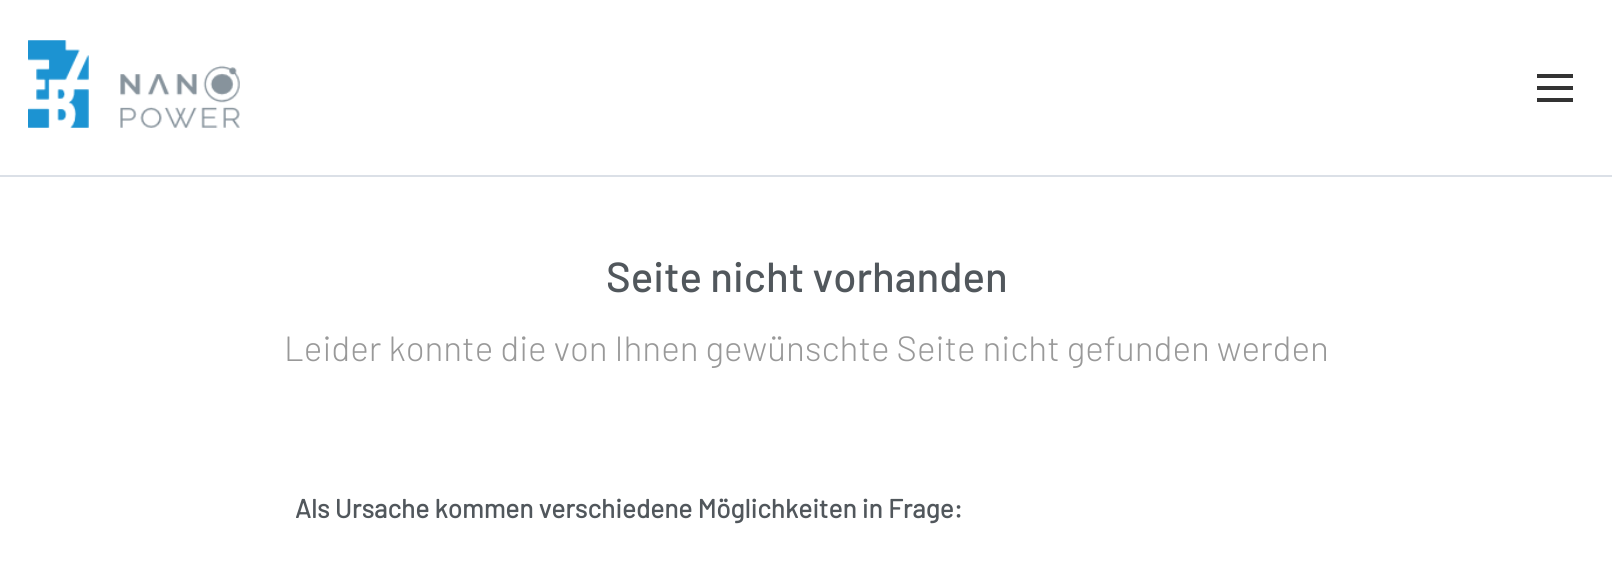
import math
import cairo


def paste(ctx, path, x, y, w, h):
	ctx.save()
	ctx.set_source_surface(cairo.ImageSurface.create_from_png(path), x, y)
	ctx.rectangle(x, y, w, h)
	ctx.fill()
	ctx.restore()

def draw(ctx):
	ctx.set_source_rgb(1, 1, 1)
	ctx.paint()
	paste(ctx, 'media/1.png', 28, 40, 212, 88)
	ctx.set_source_rgb(0.2, 0.2, 0.2)
	ctx.rectangle(1537, 74, 36, 4)
	ctx.rectangle(1537, 86, 36, 4)
	ctx.rectangle(1537, 98, 36, 4)
	ctx.fill()
	ctx.set_source_rgb(0.859, 0.878, 0.906)
	ctx.rectangle(0, 175, 1612, 2)
	ctx.fill()
	ctx.select_font_face('Barlow Medium')
	ctx.set_font_size(42)
	ctx.set_source_rgb(0.318, 0.341, 0.361)
	ctx.move_to(606, 292)
	ctx.show_text('Seite nicht vorhanden')
	ctx.select_font_face('Barlow Light')
	ctx.set_font_size(35)
	ctx.set_source_rgb(0.6, 0.6, 0.6)
	ctx.move_to(284, 361)
	ctx.show_text('Leider konnte die von Ihnen gewünschte Seite nicht gefunden werden')
	ctx.select_font_face('Barlow', cairo.FONT_SLANT_NORMAL, cairo.FONT_WEIGHT_BOLD)
	ctx.set_font_size(26.25)
	ctx.set_source_rgb(0.318, 0.341, 0.361)
	ctx.move_to(295, 518)
	ctx.show_text('Als Ursache kommen verschiedene Möglichkeiten in Frage:')


surface = cairo.ImageSurface(cairo.FORMAT_RGB24, 1612, 583)
ctx = cairo.Context(surface)
options = cairo.FontOptions()
options.set_hint_metrics(cairo.HINT_METRICS_OFF)
options.set_hint_style(cairo.HINT_STYLE_NONE)
ctx.set_font_options(options)
ctx.set_miter_limit(4)
draw(ctx)
surface.write_to_png('image.png')
